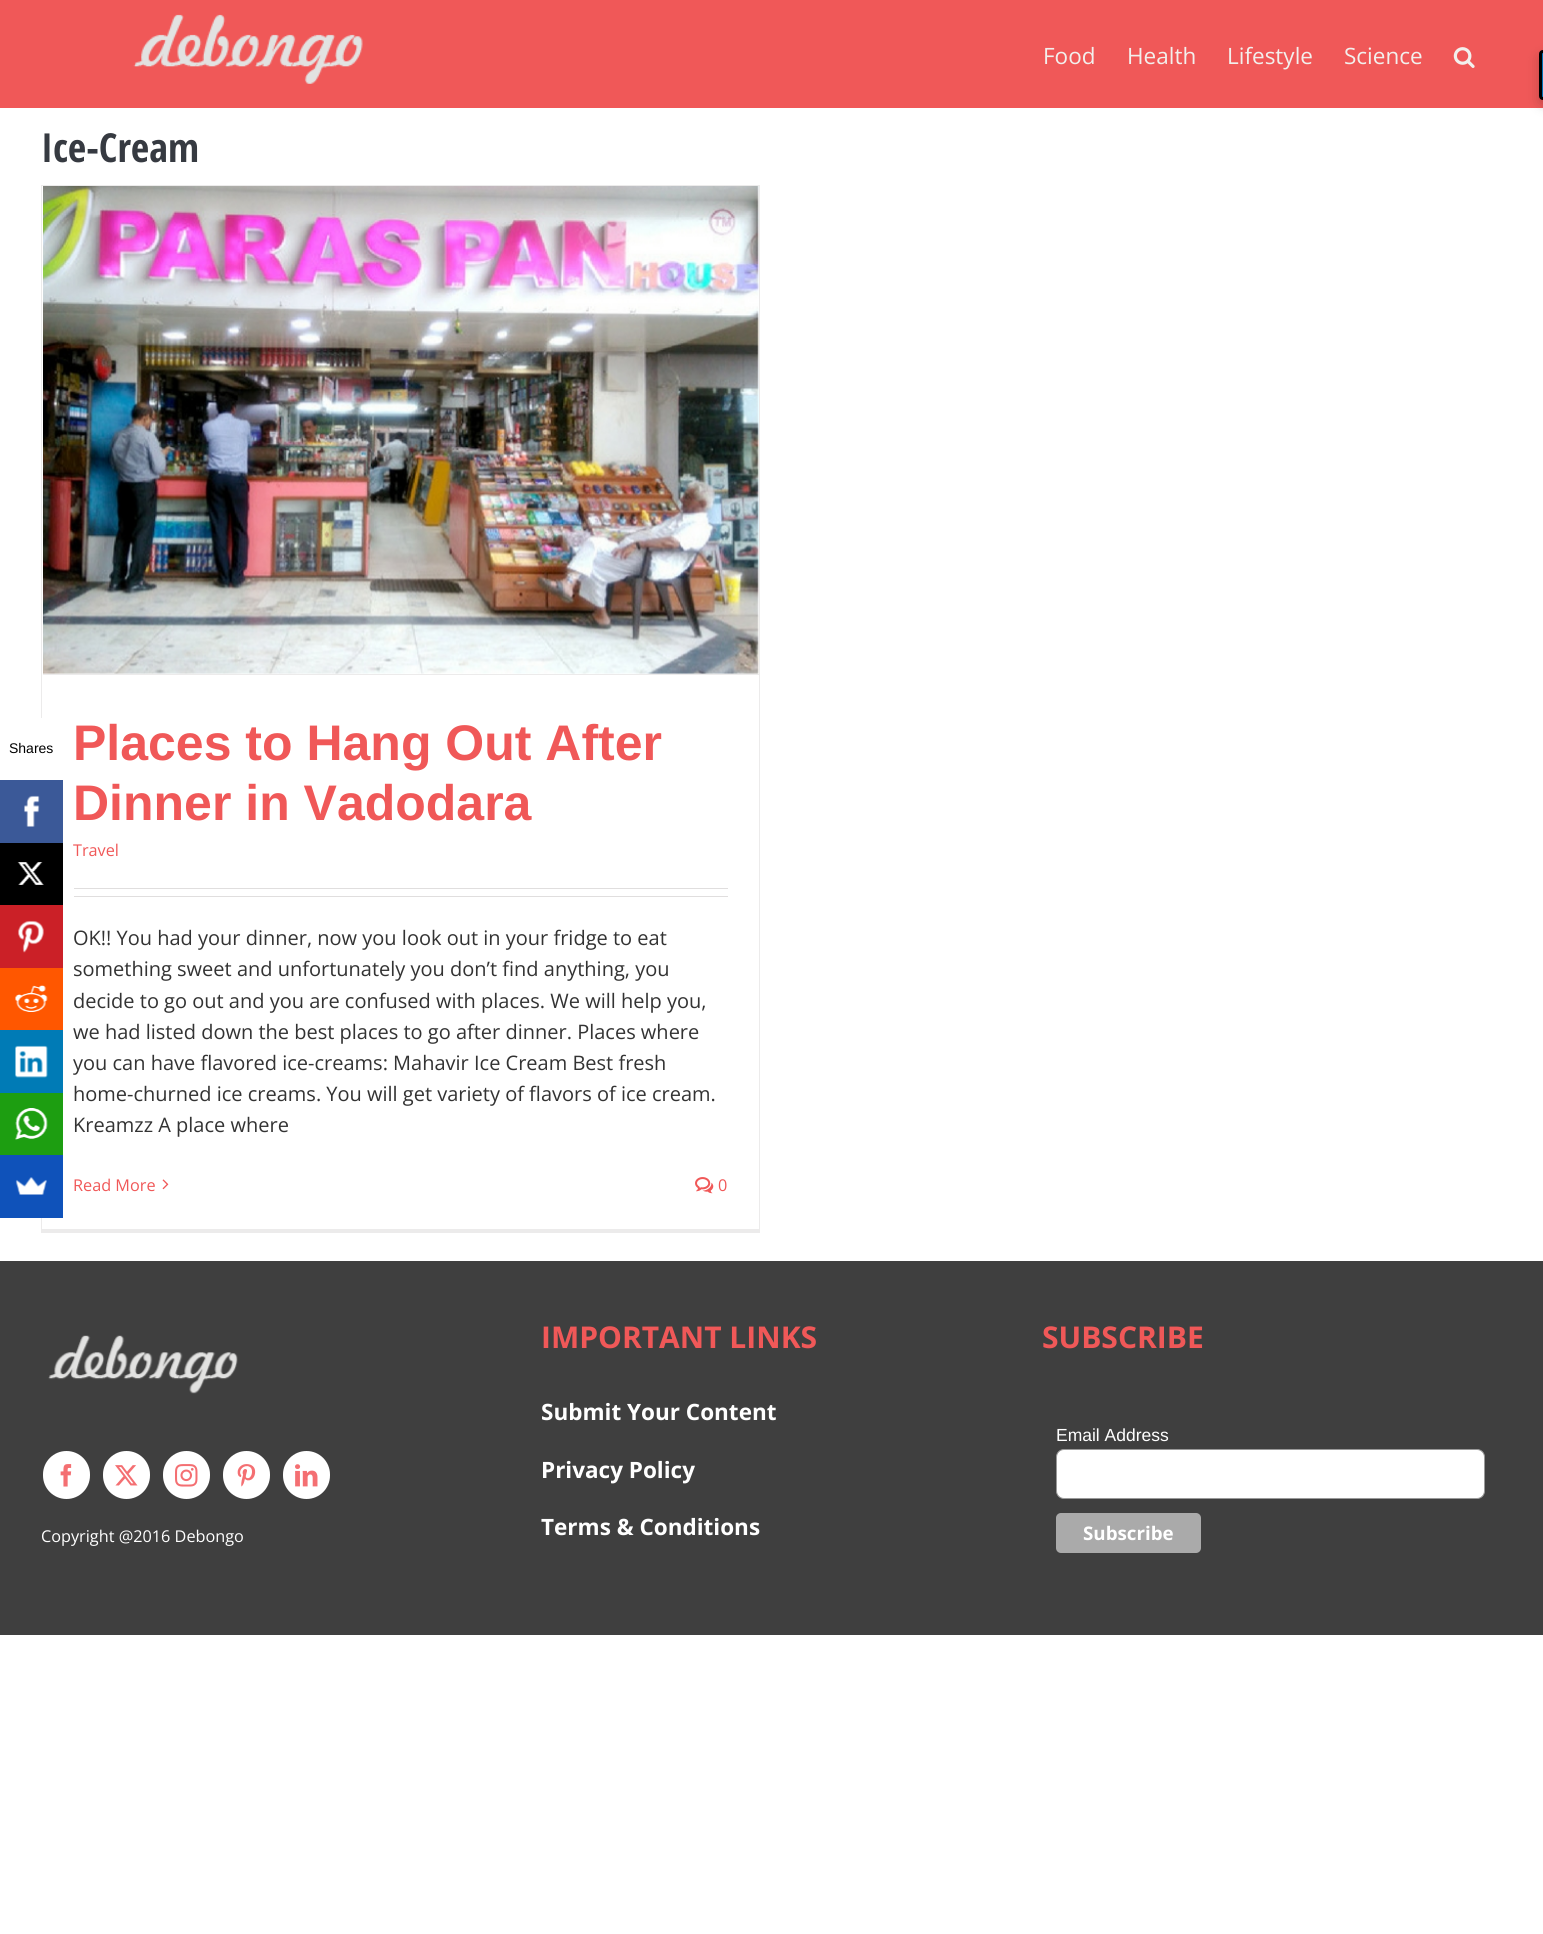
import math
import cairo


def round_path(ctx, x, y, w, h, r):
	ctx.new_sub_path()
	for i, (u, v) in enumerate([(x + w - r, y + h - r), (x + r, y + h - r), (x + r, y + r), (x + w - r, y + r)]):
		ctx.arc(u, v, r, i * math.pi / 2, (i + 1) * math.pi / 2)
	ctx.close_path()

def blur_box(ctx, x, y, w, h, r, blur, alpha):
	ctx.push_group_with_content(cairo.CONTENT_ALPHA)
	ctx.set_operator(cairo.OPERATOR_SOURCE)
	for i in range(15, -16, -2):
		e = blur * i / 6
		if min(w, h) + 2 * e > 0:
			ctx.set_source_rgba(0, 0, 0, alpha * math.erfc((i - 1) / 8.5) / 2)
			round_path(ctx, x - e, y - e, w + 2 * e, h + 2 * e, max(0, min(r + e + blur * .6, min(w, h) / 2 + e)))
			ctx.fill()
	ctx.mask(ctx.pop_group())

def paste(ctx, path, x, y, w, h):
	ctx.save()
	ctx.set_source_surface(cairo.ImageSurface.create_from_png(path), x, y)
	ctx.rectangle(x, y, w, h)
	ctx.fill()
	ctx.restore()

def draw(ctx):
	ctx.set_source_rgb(1, 1, 1)
	ctx.paint()
	ctx.set_source_rgb(0.922, 0.918, 0.918)
	ctx.rectangle(41, 185, 719, 1)
	ctx.rectangle(759, 185, 1, 1048)
	ctx.rectangle(41, 1229, 719, 4)
	ctx.rectangle(41, 185, 1, 1048)
	ctx.fill()
	ctx.set_source_rgb(1, 1, 1)
	ctx.rectangle(41, 718, 1, 62)
	ctx.fill()
	ctx.select_font_face('Liberation Sans')
	ctx.set_font_size(14)
	ctx.set_source_rgb(0, 0, 0)
	ctx.move_to(9, 753)
	ctx.show_text('Shares')
	ctx.set_source_rgb(0.231, 0.349, 0.596)
	ctx.rectangle(0, 780, 63, 63)
	ctx.fill()
	paste(ctx, 'media/1.png', 24, 795, 16, 32)
	ctx.set_source_rgb(0, 0, 0)
	ctx.rectangle(0, 843, 63, 62)
	ctx.fill()
	paste(ctx, 'media/2.png', 17, 862, 27, 23)
	ctx.set_source_rgb(0.796, 0.125, 0.153)
	ctx.rectangle(0, 905, 63, 63)
	ctx.fill()
	paste(ctx, 'media/3.png', 18, 920, 26, 33)
	ctx.set_source_rgb(1, 0.341, 0)
	ctx.rectangle(0, 968, 63, 62)
	ctx.fill()
	paste(ctx, 'media/4.png', 15, 985, 33, 27)
	ctx.set_source_rgb(0, 0.482, 0.714)
	ctx.rectangle(0, 1030, 63, 63)
	ctx.fill()
	paste(ctx, 'media/5.png', 15, 1045, 33, 33)
	ctx.set_source_rgb(0.114, 0.62, 0.067)
	ctx.rectangle(0, 1093, 63, 62)
	ctx.fill()
	paste(ctx, 'media/6.png', 15, 1108, 33, 32)
	ctx.set_source_rgb(0.059, 0.322, 0.729)
	ctx.rectangle(0, 1155, 63, 63)
	ctx.fill()
	paste(ctx, 'media/7.png', 15, 1177, 32, 18)
	ctx.set_source_rgb(0.941, 0.345, 0.345)
	ctx.rectangle(0, 0, 1543, 108)
	ctx.fill()
	paste(ctx, 'media/8.png', 133, 14, 230, 70)
	ctx.select_font_face('Open Sans')
	ctx.set_font_size(22.5)
	ctx.set_source_rgb(0.949, 0.941, 0.929)
	for x, y, s in [
		(1043, 64, 'Food'),
		(1127, 64, 'Health'),
		(1227, 64, 'Lifestyle'),
		(1344, 64, 'Science'),
	]:
		ctx.move_to(x, y)
		ctx.show_text(s)
	paste(ctx, 'media/9.png', 1453, 47, 22, 21)
	ctx.select_font_face('Open Sans Condensed', cairo.FONT_SLANT_NORMAL, cairo.FONT_WEIGHT_BOLD)
	ctx.set_font_size(40)
	ctx.set_source_rgb(0.212, 0.227, 0.255)
	ctx.move_to(41, 162)
	ctx.show_text('Ice-Cream')
	ctx.set_source_rgb(0.922, 0.918, 0.918)
	ctx.rectangle(43, 674, 716, 1)
	ctx.fill()
	paste(ctx, 'media/10.png', 43, 186, 716, 488)
	ctx.select_font_face('Liberation Sans', cairo.FONT_SLANT_NORMAL, cairo.FONT_WEIGHT_BOLD)
	ctx.set_font_size(50)
	ctx.set_source_rgb(0.941, 0.345, 0.345)
	ctx.move_to(73, 760)
	ctx.show_text('Places to Hang Out After')
	ctx.move_to(73, 820)
	ctx.show_text('Dinner in Vadodara')
	ctx.select_font_face('Open Sans')
	ctx.set_font_size(16.25)
	ctx.move_to(73, 856)
	ctx.show_text('Travel')
	ctx.set_source_rgb(0.878, 0.871, 0.871)
	ctx.rectangle(74, 888, 654, 1)
	ctx.fill()
	ctx.rectangle(74, 896, 654, 1)
	ctx.fill()
	ctx.set_font_size(20)
	ctx.set_source_rgb(0.2, 0.2, 0.2)
	for x, y, s in [
		(73, 945, 'OK!! You had your dinner, now you look out in your fridge to eat'),
		(73, 976, 'something sweet and unfortunately you don’t find anything, you'),
		(73, 1008, 'decide to go out and you are confused with places. We will help you,'),
		(73, 1039, 'we had listed down the best places to go after dinner. Places where'),
		(73, 1070, 'you can have flavored ice-creams: Mahavir Ice Cream Best fresh'),
		(73, 1101, 'home-churned ice creams. You will get variety of flavors of ice cream.'),
		(73, 1132, 'Kreamzz A place where'),
	]:
		ctx.move_to(x, y)
		ctx.show_text(s)
	ctx.set_font_size(16.25)
	ctx.set_source_rgb(0.941, 0.345, 0.345)
	ctx.move_to(73, 1191)
	ctx.show_text('Read More')
	paste(ctx, 'media/11.png', 162, 1179, 7, 11)
	paste(ctx, 'media/12.png', 695, 1177, 19, 17)
	ctx.move_to(718, 1191)
	ctx.show_text('0')
	ctx.set_source_rgb(0.247, 0.247, 0.247)
	ctx.rectangle(0, 1261, 1543, 374)
	ctx.fill()
	paste(ctx, 'media/13.png', 48, 1335, 190, 59)
	ctx.set_source_rgb(1, 1, 1)
	round_path(ctx, 43, 1451, 47, 48, 23.5)
	ctx.fill()
	paste(ctx, 'media/14.png', 60, 1464, 12, 23)
	round_path(ctx, 103, 1451, 47, 48, 23.5)
	ctx.fill()
	paste(ctx, 'media/15.png', 115, 1465, 23, 21)
	round_path(ctx, 163, 1451, 47, 48, 23.5)
	ctx.fill()
	paste(ctx, 'media/16.png', 175, 1464, 23, 23)
	round_path(ctx, 223, 1451, 47, 48, 23.5)
	ctx.fill()
	paste(ctx, 'media/17.png', 237, 1464, 19, 23)
	round_path(ctx, 283, 1451, 47, 48, 23.5)
	ctx.fill()
	paste(ctx, 'media/18.png', 295, 1464, 23, 23)
	ctx.move_to(41, 1542)
	ctx.show_text('Copyright @2016 Debongo')
	ctx.select_font_face('Open Sans', cairo.FONT_SLANT_NORMAL, cairo.FONT_WEIGHT_BOLD)
	ctx.set_font_size(30)
	ctx.set_source_rgb(0.941, 0.345, 0.345)
	ctx.move_to(541, 1348)
	ctx.show_text('IMPORTANT LINKS')
	ctx.set_font_size(22.5)
	ctx.set_source_rgb(1, 1, 1)
	for x, y, s in [
		(541, 1420, 'Submit Your Content'),
		(541, 1478, 'Privacy Policy'),
		(541, 1535, 'Terms & Conditions'),
	]:
		ctx.move_to(x, y)
		ctx.show_text(s)
	ctx.set_font_size(30)
	ctx.set_source_rgb(0.941, 0.345, 0.345)
	ctx.move_to(1042, 1348)
	ctx.show_text('SUBSCRIBE')
	ctx.select_font_face('Liberation Sans')
	ctx.set_font_size(17.5)
	ctx.set_source_rgb(1, 1, 1)
	ctx.move_to(1056, 1441)
	ctx.show_text('Email Address')
	round_path(ctx, 1056.5, 1449.5, 428, 49, 7.5)
	ctx.fill_preserve()
	ctx.set_source_rgb(0.6, 0.6, 0.6)
	ctx.set_line_width(1)
	ctx.stroke()
	ctx.set_source_rgb(0.667, 0.667, 0.667)
	round_path(ctx, 1056, 1513, 145, 40, 5)
	ctx.fill()
	ctx.select_font_face('Open Sans', cairo.FONT_SLANT_NORMAL, cairo.FONT_WEIGHT_BOLD)
	ctx.set_font_size(18.75)
	ctx.set_source_rgb(1, 1, 1)
	ctx.move_to(1083, 1540)
	ctx.show_text('Subscribe')
	ctx.set_source_rgb(0, 0, 0)
	blur_box(ctx, 1539, 55, 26, 50, 4, 6, 0.2)
	ctx.set_source_rgb(0, 0.451, 0.718)
	ctx.new_path()
	ctx.move_to(1543, 51.5)
	ctx.line_to(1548.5, 51.5)
	ctx.line_to(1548.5, 98.5)
	ctx.line_to(1543, 98.5)
	ctx.curve_to(1541.5, 98.5, 1540.5, 97.5, 1540.5, 96)
	ctx.line_to(1540.5, 54)
	ctx.curve_to(1540.5, 52.5, 1541.5, 51.5, 1543, 51.5)
	ctx.close_path()
	ctx.fill_preserve()
	ctx.set_source_rgb(0, 0, 0)
	ctx.set_line_width(3)
	ctx.stroke()


surface = cairo.ImageSurface(cairo.FORMAT_RGB24, 1543, 1934)
ctx = cairo.Context(surface)
options = cairo.FontOptions()
options.set_hint_metrics(cairo.HINT_METRICS_OFF)
options.set_hint_style(cairo.HINT_STYLE_NONE)
ctx.set_font_options(options)
ctx.set_miter_limit(4)
draw(ctx)
surface.write_to_png('image.png')
